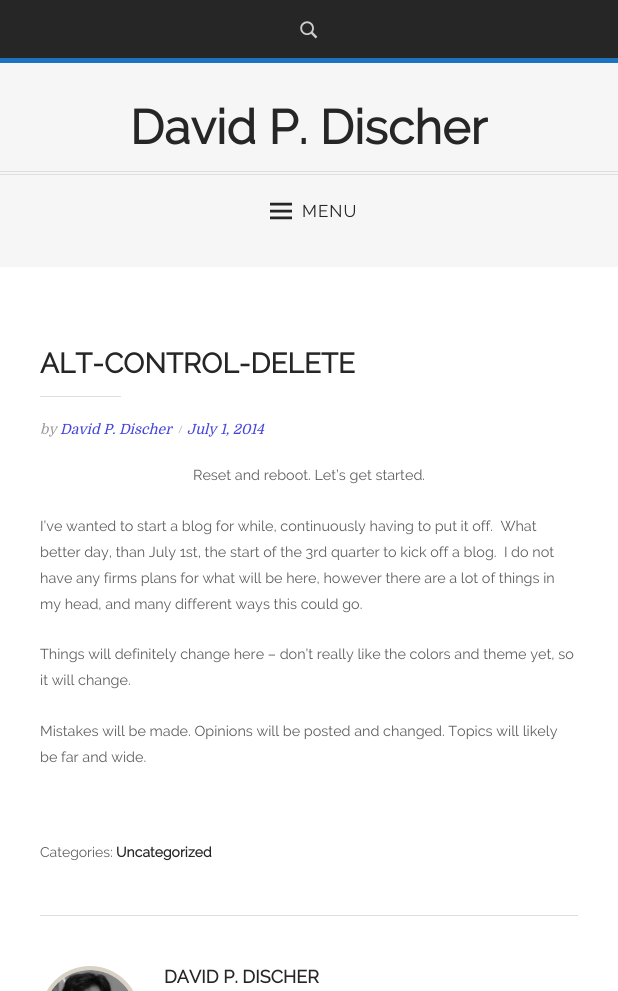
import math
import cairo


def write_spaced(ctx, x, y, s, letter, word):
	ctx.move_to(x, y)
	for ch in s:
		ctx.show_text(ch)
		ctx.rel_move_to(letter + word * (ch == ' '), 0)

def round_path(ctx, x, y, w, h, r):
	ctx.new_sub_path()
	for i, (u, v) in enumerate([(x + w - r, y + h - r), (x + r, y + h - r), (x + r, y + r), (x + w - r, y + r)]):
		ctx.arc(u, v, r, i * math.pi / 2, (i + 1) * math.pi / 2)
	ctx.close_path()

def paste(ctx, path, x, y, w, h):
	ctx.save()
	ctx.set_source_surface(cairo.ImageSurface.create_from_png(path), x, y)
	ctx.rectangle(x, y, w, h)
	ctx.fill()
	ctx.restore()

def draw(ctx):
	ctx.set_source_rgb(0.961, 0.961, 0.961)
	ctx.paint()
	ctx.set_source_rgb(0.149, 0.149, 0.149)
	ctx.rectangle(0, 0, 618, 58)
	ctx.fill()
	ctx.set_source_rgb(0.118, 0.451, 0.745)
	ctx.rectangle(0, 58, 618, 5)
	ctx.fill()
	paste(ctx, 'media/1.png', 300, 21, 18, 18)
	ctx.select_font_face('Raleway', cairo.FONT_SLANT_NORMAL, cairo.FONT_WEIGHT_BOLD)
	ctx.set_font_size(48)
	ctx.set_source_rgb(0.149, 0.149, 0.149)
	ctx.move_to(130, 144)
	ctx.show_text('David P. Discher')
	ctx.set_source_rgb(0.871, 0.871, 0.871)
	ctx.rectangle(0, 171, 618, 1)
	ctx.fill()
	ctx.rectangle(0, 174, 618, 1)
	ctx.fill()
	paste(ctx, 'media/2.png', 270, 202, 22, 18)
	ctx.select_font_face('Raleway')
	ctx.set_font_size(17)
	ctx.set_source_rgb(0.149, 0.149, 0.149)
	write_spaced(ctx, 302, 217, 'MENU', 1, 0)
	ctx.set_source_rgb(1, 1, 1)
	ctx.rectangle(0, 267, 618, 724)
	ctx.fill()
	ctx.select_font_face('Raleway', cairo.FONT_SLANT_NORMAL, cairo.FONT_WEIGHT_BOLD)
	ctx.set_font_size(28)
	ctx.set_source_rgb(0.149, 0.149, 0.149)
	ctx.move_to(40, 373)
	ctx.show_text('ALT-CONTROL-DELETE')
	ctx.set_source_rgb(0.871, 0.871, 0.871)
	ctx.rectangle(40, 396, 81, 1)
	ctx.fill()
	ctx.select_font_face('Domine', cairo.FONT_SLANT_ITALIC)
	ctx.set_font_size(14)
	ctx.set_source_rgb(0.604, 0.604, 0.604)
	ctx.move_to(40, 434)
	ctx.show_text('by')
	ctx.set_source_rgb(0.267, 0.267, 0.867)
	ctx.move_to(60, 434)
	ctx.show_text('David P. Discher')
	ctx.set_font_size(10)
	ctx.set_source_rgb(0.604, 0.604, 0.604)
	ctx.move_to(178, 433)
	ctx.show_text('/')
	ctx.set_font_size(14)
	ctx.set_source_rgb(0.267, 0.267, 0.867)
	ctx.move_to(187, 434)
	ctx.show_text('July 1, 2014')
	ctx.select_font_face('Raleway')
	ctx.set_font_size(14.4)
	ctx.set_source_rgb(0.373, 0.373, 0.373)
	for x, y, s in [
		(193, 480, 'Reset and reboot. Let’s get started.'),
		(40, 531, 'I’ve wanted to start a blog for while, continuously having to put it off.  What'),
		(40, 557, 'better day, than July 1st, the start of the 3rd quarter to kick off a blog.  I do not'),
		(40, 583, 'have any firms plans for what will be here, however there are a lot of things in'),
		(40, 609, 'my head, and many different ways this could go.'),
		(40, 659, 'Things will definitely change here – don’t really like the colors and theme yet, so'),
		(40, 685, 'it will change.'),
		(40, 736, 'Mistakes will be made. Opinions will be posted and changed. Topics will likely'),
		(40, 762, 'be far and wide.'),
	]:
		ctx.move_to(x, y)
		ctx.show_text(s)
	ctx.set_font_size(14)
	ctx.move_to(40, 857)
	ctx.show_text('Categories:')
	ctx.select_font_face('Raleway', cairo.FONT_SLANT_NORMAL, cairo.FONT_WEIGHT_BOLD)
	ctx.set_source_rgb(0.149, 0.149, 0.149)
	ctx.move_to(116, 857)
	ctx.show_text('Uncategorized')
	ctx.set_source_rgb(0.871, 0.871, 0.871)
	ctx.rectangle(40, 915, 538, 1)
	ctx.fill()
	round_path(ctx, 42, 968, 96, 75, 48)
	ctx.set_source_rgb(0.847, 0.824, 0.773)
	ctx.set_line_width(4)
	ctx.stroke()
	paste(ctx, 'media/3.png', 51, 970, 78, 21)
	ctx.set_font_size(18)
	ctx.set_source_rgb(0.149, 0.149, 0.149)
	ctx.move_to(164, 983)
	ctx.show_text('DAVID P. DISCHER')


surface = cairo.ImageSurface(cairo.FORMAT_RGB24, 618, 991)
ctx = cairo.Context(surface)
options = cairo.FontOptions()
options.set_hint_metrics(cairo.HINT_METRICS_OFF)
options.set_hint_style(cairo.HINT_STYLE_NONE)
ctx.set_font_options(options)
ctx.set_miter_limit(4)
draw(ctx)
surface.write_to_png('image.png')
